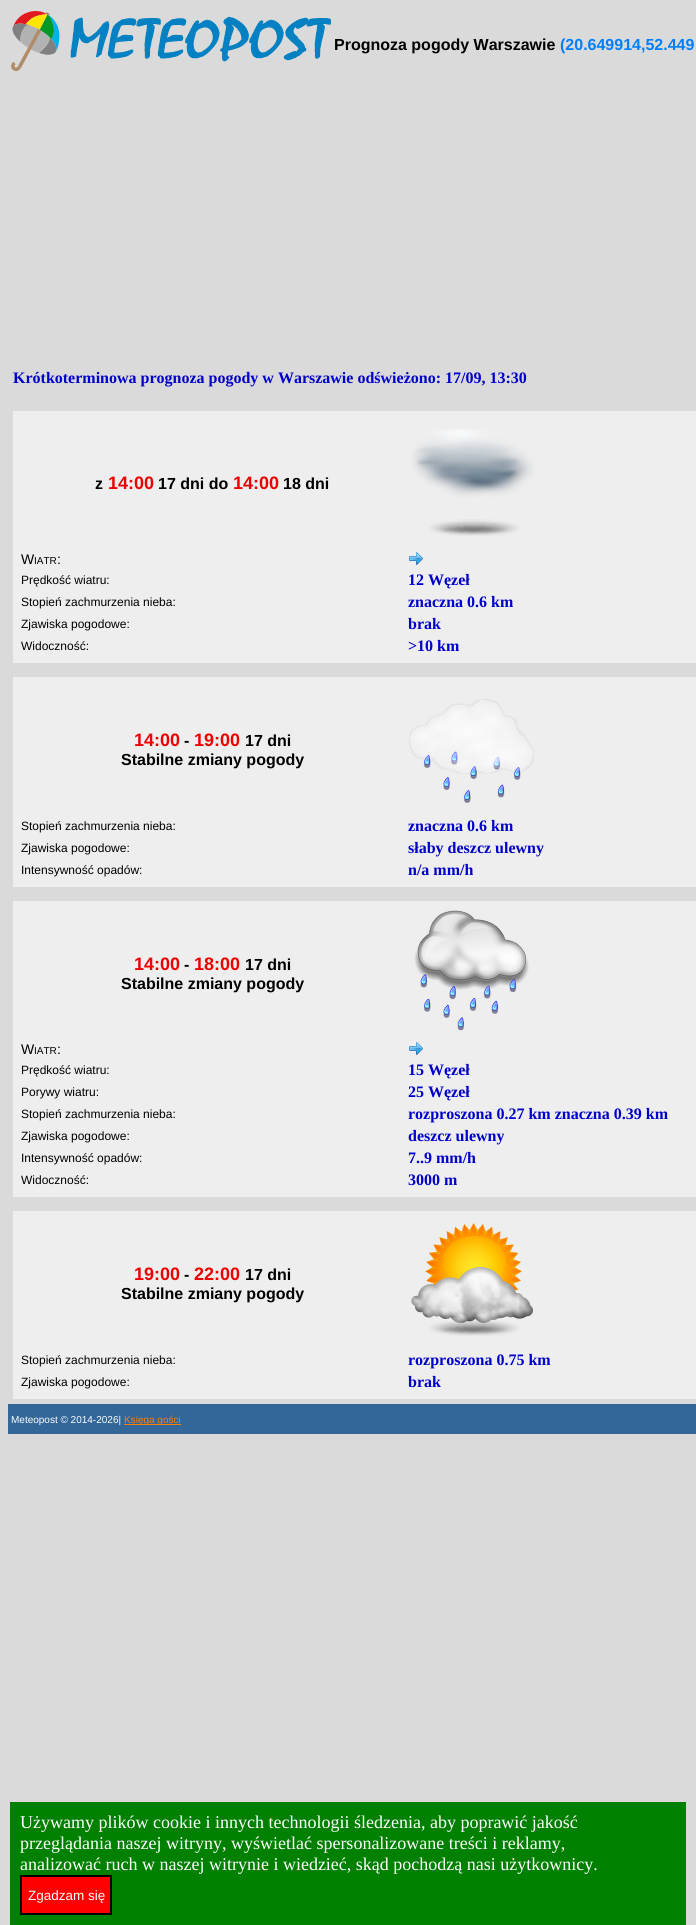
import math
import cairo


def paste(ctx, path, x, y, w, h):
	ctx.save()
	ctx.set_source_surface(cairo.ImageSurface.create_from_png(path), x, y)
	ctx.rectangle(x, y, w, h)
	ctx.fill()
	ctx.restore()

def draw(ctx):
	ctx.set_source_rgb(0.855, 0.855, 0.855)
	ctx.paint()
	paste(ctx, 'media/1.png', 11, 11, 320, 60)
	ctx.select_font_face('Liberation Sans', cairo.FONT_SLANT_NORMAL, cairo.FONT_WEIGHT_BOLD)
	ctx.set_font_size(16)
	ctx.set_source_rgb(0, 0, 0)
	ctx.move_to(334, 50)
	ctx.show_text('Prognoza pogody Warszawie')
	ctx.set_source_rgb(0, 0.502, 1)
	ctx.move_to(560, 50)
	ctx.show_text('(20.649914,52.449')
	ctx.select_font_face('Liberation Serif', cairo.FONT_SLANT_NORMAL, cairo.FONT_WEIGHT_BOLD)
	ctx.set_source_rgb(0, 0, 0.792)
	ctx.move_to(13, 383)
	ctx.show_text('Krótkoterminowa prognoza pogody w Warszawie odświeżono: 17/09, 13:30')
	ctx.set_source_rgb(0.933, 0.933, 0.933)
	ctx.rectangle(13, 411, 683, 252)
	ctx.fill()
	ctx.select_font_face('Liberation Sans', cairo.FONT_SLANT_NORMAL, cairo.FONT_WEIGHT_BOLD)
	ctx.set_source_rgb(0, 0, 0)
	ctx.move_to(95, 489)
	ctx.show_text('z')
	ctx.set_font_size(18)
	ctx.set_source_rgb(0.925, 0, 0)
	ctx.move_to(108, 489)
	ctx.show_text('14:00')
	ctx.set_font_size(16)
	ctx.set_source_rgb(0, 0, 0)
	ctx.move_to(158, 489)
	ctx.show_text('17 dni do')
	ctx.set_font_size(18)
	ctx.set_source_rgb(0.925, 0, 0)
	ctx.move_to(233, 489)
	ctx.show_text('14:00')
	ctx.set_font_size(16)
	ctx.set_source_rgb(0, 0, 0)
	ctx.move_to(283, 489)
	ctx.show_text('18 dni')
	paste(ctx, 'media/2.png', 411, 429, 124, 107)
	ctx.select_font_face('Liberation Sans')
	ctx.set_font_size(14)
	ctx.move_to(21, 564)
	ctx.show_text('W')
	ctx.set_font_size(10)
	ctx.move_to(34, 564)
	ctx.show_text('IATR')
	ctx.set_font_size(14)
	ctx.move_to(57, 564)
	ctx.show_text(':')
	paste(ctx, 'media/3.png', 409, 552, 14, 13)
	ctx.set_font_size(12)
	ctx.move_to(21, 584)
	ctx.show_text('Prędkość wiatru:')
	ctx.select_font_face('Liberation Serif', cairo.FONT_SLANT_NORMAL, cairo.FONT_WEIGHT_BOLD)
	ctx.set_font_size(16)
	ctx.set_source_rgb(0, 0, 0.792)
	ctx.move_to(408, 585)
	ctx.show_text('12 Węzeł')
	ctx.select_font_face('Liberation Sans')
	ctx.set_font_size(12)
	ctx.set_source_rgb(0, 0, 0)
	ctx.move_to(21, 606)
	ctx.show_text('Stopień zachmurzenia nieba:')
	ctx.select_font_face('Liberation Serif', cairo.FONT_SLANT_NORMAL, cairo.FONT_WEIGHT_BOLD)
	ctx.set_font_size(16)
	ctx.set_source_rgb(0, 0, 0.792)
	ctx.move_to(408, 607)
	ctx.show_text('znaczna 0.6 km')
	ctx.select_font_face('Liberation Sans')
	ctx.set_font_size(12)
	ctx.set_source_rgb(0, 0, 0)
	ctx.move_to(21, 628)
	ctx.show_text('Zjawiska pogodowe:')
	ctx.select_font_face('Liberation Serif', cairo.FONT_SLANT_NORMAL, cairo.FONT_WEIGHT_BOLD)
	ctx.set_font_size(16)
	ctx.set_source_rgb(0, 0, 0.792)
	ctx.move_to(408, 629)
	ctx.show_text('brak')
	ctx.select_font_face('Liberation Sans')
	ctx.set_font_size(12)
	ctx.set_source_rgb(0, 0, 0)
	ctx.move_to(21, 650)
	ctx.show_text('Widoczność:')
	ctx.select_font_face('Liberation Serif', cairo.FONT_SLANT_NORMAL, cairo.FONT_WEIGHT_BOLD)
	ctx.set_font_size(16)
	ctx.set_source_rgb(0, 0, 0.792)
	ctx.move_to(408, 651)
	ctx.show_text('>10 km')
	ctx.set_source_rgb(0.933, 0.933, 0.933)
	ctx.rectangle(13, 677, 683, 210)
	ctx.fill()
	ctx.select_font_face('Liberation Sans', cairo.FONT_SLANT_NORMAL, cairo.FONT_WEIGHT_BOLD)
	ctx.set_font_size(18)
	ctx.set_source_rgb(0.925, 0, 0)
	ctx.move_to(134, 746)
	ctx.show_text('14:00')
	ctx.set_font_size(16)
	ctx.set_source_rgb(0, 0, 0)
	ctx.move_to(184, 746)
	ctx.show_text('-')
	ctx.set_font_size(18)
	ctx.set_source_rgb(0.925, 0, 0)
	ctx.move_to(194, 746)
	ctx.show_text('19:00')
	ctx.set_font_size(16)
	ctx.set_source_rgb(0, 0, 0)
	ctx.move_to(245, 746)
	ctx.show_text('17 dni')
	ctx.move_to(121, 765)
	ctx.show_text('Stabilne zmiany pogody')
	paste(ctx, 'media/4.png', 409, 699, 125, 104)
	ctx.select_font_face('Liberation Sans')
	ctx.set_font_size(12)
	ctx.move_to(21, 830)
	ctx.show_text('Stopień zachmurzenia nieba:')
	ctx.select_font_face('Liberation Serif', cairo.FONT_SLANT_NORMAL, cairo.FONT_WEIGHT_BOLD)
	ctx.set_font_size(16)
	ctx.set_source_rgb(0, 0, 0.792)
	ctx.move_to(408, 831)
	ctx.show_text('znaczna 0.6 km')
	ctx.select_font_face('Liberation Sans')
	ctx.set_font_size(12)
	ctx.set_source_rgb(0, 0, 0)
	ctx.move_to(21, 852)
	ctx.show_text('Zjawiska pogodowe:')
	ctx.select_font_face('Liberation Serif', cairo.FONT_SLANT_NORMAL, cairo.FONT_WEIGHT_BOLD)
	ctx.set_font_size(16)
	ctx.set_source_rgb(0, 0, 0.792)
	ctx.move_to(408, 853)
	ctx.show_text('słaby deszcz ulewny')
	ctx.select_font_face('Liberation Sans')
	ctx.set_font_size(12)
	ctx.set_source_rgb(0, 0, 0)
	ctx.move_to(21, 874)
	ctx.show_text('Intensywność opadów:')
	ctx.select_font_face('Liberation Serif', cairo.FONT_SLANT_NORMAL, cairo.FONT_WEIGHT_BOLD)
	ctx.set_font_size(16)
	ctx.set_source_rgb(0, 0, 0.792)
	ctx.move_to(408, 875)
	ctx.show_text('n/a mm/h')
	ctx.set_source_rgb(0.933, 0.933, 0.933)
	ctx.rectangle(13, 901, 683, 296)
	ctx.fill()
	ctx.select_font_face('Liberation Sans', cairo.FONT_SLANT_NORMAL, cairo.FONT_WEIGHT_BOLD)
	ctx.set_font_size(18)
	ctx.set_source_rgb(0.925, 0, 0)
	ctx.move_to(134, 970)
	ctx.show_text('14:00')
	ctx.set_font_size(16)
	ctx.set_source_rgb(0, 0, 0)
	ctx.move_to(184, 970)
	ctx.show_text('-')
	ctx.set_font_size(18)
	ctx.set_source_rgb(0.925, 0, 0)
	ctx.move_to(194, 970)
	ctx.show_text('18:00')
	ctx.set_font_size(16)
	ctx.set_source_rgb(0, 0, 0)
	ctx.move_to(245, 970)
	ctx.show_text('17 dni')
	ctx.move_to(121, 989)
	ctx.show_text('Stabilne zmiany pogody')
	paste(ctx, 'media/5.png', 414, 909, 115, 122)
	ctx.select_font_face('Liberation Sans')
	ctx.set_font_size(14)
	ctx.move_to(21, 1054)
	ctx.show_text('W')
	ctx.set_font_size(10)
	ctx.move_to(34, 1054)
	ctx.show_text('IATR')
	ctx.set_font_size(14)
	ctx.move_to(57, 1054)
	ctx.show_text(':')
	paste(ctx, 'media/3.png', 409, 1042, 14, 13)
	ctx.set_font_size(12)
	ctx.move_to(21, 1074)
	ctx.show_text('Prędkość wiatru:')
	ctx.select_font_face('Liberation Serif', cairo.FONT_SLANT_NORMAL, cairo.FONT_WEIGHT_BOLD)
	ctx.set_font_size(16)
	ctx.set_source_rgb(0, 0, 0.792)
	ctx.move_to(408, 1075)
	ctx.show_text('15 Węzeł')
	ctx.select_font_face('Liberation Sans')
	ctx.set_font_size(12)
	ctx.set_source_rgb(0, 0, 0)
	ctx.move_to(21, 1096)
	ctx.show_text('Porywy wiatru:')
	ctx.select_font_face('Liberation Serif', cairo.FONT_SLANT_NORMAL, cairo.FONT_WEIGHT_BOLD)
	ctx.set_font_size(16)
	ctx.set_source_rgb(0, 0, 0.792)
	ctx.move_to(408, 1097)
	ctx.show_text('25 Węzeł')
	ctx.select_font_face('Liberation Sans')
	ctx.set_font_size(12)
	ctx.set_source_rgb(0, 0, 0)
	ctx.move_to(21, 1118)
	ctx.show_text('Stopień zachmurzenia nieba:')
	ctx.select_font_face('Liberation Serif', cairo.FONT_SLANT_NORMAL, cairo.FONT_WEIGHT_BOLD)
	ctx.set_font_size(16)
	ctx.set_source_rgb(0, 0, 0.792)
	ctx.move_to(408, 1119)
	ctx.show_text('rozproszona 0.27 km znaczna 0.39 km')
	ctx.select_font_face('Liberation Sans')
	ctx.set_font_size(12)
	ctx.set_source_rgb(0, 0, 0)
	ctx.move_to(21, 1140)
	ctx.show_text('Zjawiska pogodowe:')
	ctx.select_font_face('Liberation Serif', cairo.FONT_SLANT_NORMAL, cairo.FONT_WEIGHT_BOLD)
	ctx.set_font_size(16)
	ctx.set_source_rgb(0, 0, 0.792)
	ctx.move_to(408, 1141)
	ctx.show_text('deszcz ulewny')
	ctx.select_font_face('Liberation Sans')
	ctx.set_font_size(12)
	ctx.set_source_rgb(0, 0, 0)
	ctx.move_to(21, 1162)
	ctx.show_text('Intensywność opadów:')
	ctx.select_font_face('Liberation Serif', cairo.FONT_SLANT_NORMAL, cairo.FONT_WEIGHT_BOLD)
	ctx.set_font_size(16)
	ctx.set_source_rgb(0, 0, 0.792)
	ctx.move_to(408, 1163)
	ctx.show_text('7..9 mm/h')
	ctx.select_font_face('Liberation Sans')
	ctx.set_font_size(12)
	ctx.set_source_rgb(0, 0, 0)
	ctx.move_to(21, 1184)
	ctx.show_text('Widoczność:')
	ctx.select_font_face('Liberation Serif', cairo.FONT_SLANT_NORMAL, cairo.FONT_WEIGHT_BOLD)
	ctx.set_font_size(16)
	ctx.set_source_rgb(0, 0, 0.792)
	ctx.move_to(408, 1185)
	ctx.show_text('3000 m')
	ctx.set_source_rgb(0.933, 0.933, 0.933)
	ctx.rectangle(13, 1211, 683, 188)
	ctx.fill()
	ctx.select_font_face('Liberation Sans', cairo.FONT_SLANT_NORMAL, cairo.FONT_WEIGHT_BOLD)
	ctx.set_font_size(18)
	ctx.set_source_rgb(0.925, 0, 0)
	ctx.move_to(134, 1280)
	ctx.show_text('19:00')
	ctx.set_font_size(16)
	ctx.set_source_rgb(0, 0, 0)
	ctx.move_to(184, 1280)
	ctx.show_text('-')
	ctx.set_font_size(18)
	ctx.set_source_rgb(0.925, 0, 0)
	ctx.move_to(194, 1280)
	ctx.show_text('22:00')
	ctx.set_font_size(16)
	ctx.set_source_rgb(0, 0, 0)
	ctx.move_to(245, 1280)
	ctx.show_text('17 dni')
	ctx.move_to(121, 1299)
	ctx.show_text('Stabilne zmiany pogody')
	paste(ctx, 'media/6.png', 411, 1223, 122, 113)
	ctx.select_font_face('Liberation Sans')
	ctx.set_font_size(12)
	ctx.move_to(21, 1364)
	ctx.show_text('Stopień zachmurzenia nieba:')
	ctx.select_font_face('Liberation Serif', cairo.FONT_SLANT_NORMAL, cairo.FONT_WEIGHT_BOLD)
	ctx.set_font_size(16)
	ctx.set_source_rgb(0, 0, 0.792)
	ctx.move_to(408, 1365)
	ctx.show_text('rozproszona 0.75 km')
	ctx.select_font_face('Liberation Sans')
	ctx.set_font_size(12)
	ctx.set_source_rgb(0, 0, 0)
	ctx.move_to(21, 1386)
	ctx.show_text('Zjawiska pogodowe:')
	ctx.select_font_face('Liberation Serif', cairo.FONT_SLANT_NORMAL, cairo.FONT_WEIGHT_BOLD)
	ctx.set_font_size(16)
	ctx.set_source_rgb(0, 0, 0.792)
	ctx.move_to(408, 1387)
	ctx.show_text('brak')
	ctx.set_source_rgb(0.2, 0.4, 0.6)
	ctx.rectangle(8, 1404, 688, 30)
	ctx.fill()
	ctx.select_font_face('Liberation Sans')
	ctx.set_font_size(10)
	ctx.set_source_rgb(1, 1, 1)
	ctx.move_to(11, 1423)
	ctx.show_text('Meteopost © 2014-2026|')
	ctx.set_source_rgb(1, 0.502, 0)
	ctx.rectangle(124, 1424, 57, 1)
	ctx.fill()
	ctx.move_to(124, 1423)
	ctx.show_text('Księga gości')
	ctx.set_source_rgb(0, 0.502, 0)
	ctx.rectangle(10, 1802, 676, 123)
	ctx.fill()
	ctx.select_font_face('Liberation Serif')
	ctx.set_font_size(18)
	ctx.set_source_rgb(1, 1, 1)
	for x, y, s in [
		(20, 1828, 'Używamy plików cookie i innych technologii śledzenia, aby poprawić jakość'),
		(20, 1849, 'przeglądania naszej witryny, wyświetlać spersonalizowane treści i reklamy,'),
		(20, 1870, 'analizować ruch w naszej witrynie i wiedzieć, skąd pochodzą nasi użytkownicy.'),
	]:
		ctx.move_to(x, y)
		ctx.show_text(s)
	ctx.set_source_rgb(1, 0, 0)
	ctx.rectangle(21, 1876, 90, 38)
	ctx.fill_preserve()
	ctx.set_source_rgb(0, 0, 0)
	ctx.stroke()
	ctx.select_font_face('Liberation Sans')
	ctx.set_font_size(13.5)
	ctx.set_source_rgb(1, 1, 1)
	ctx.move_to(28, 1900)
	ctx.show_text('Zgadzam się')


surface = cairo.ImageSurface(cairo.FORMAT_RGB24, 696, 1925)
ctx = cairo.Context(surface)
options = cairo.FontOptions()
options.set_hint_metrics(cairo.HINT_METRICS_OFF)
options.set_hint_style(cairo.HINT_STYLE_NONE)
ctx.set_font_options(options)
ctx.set_miter_limit(4)
draw(ctx)
surface.write_to_png('image.png')
